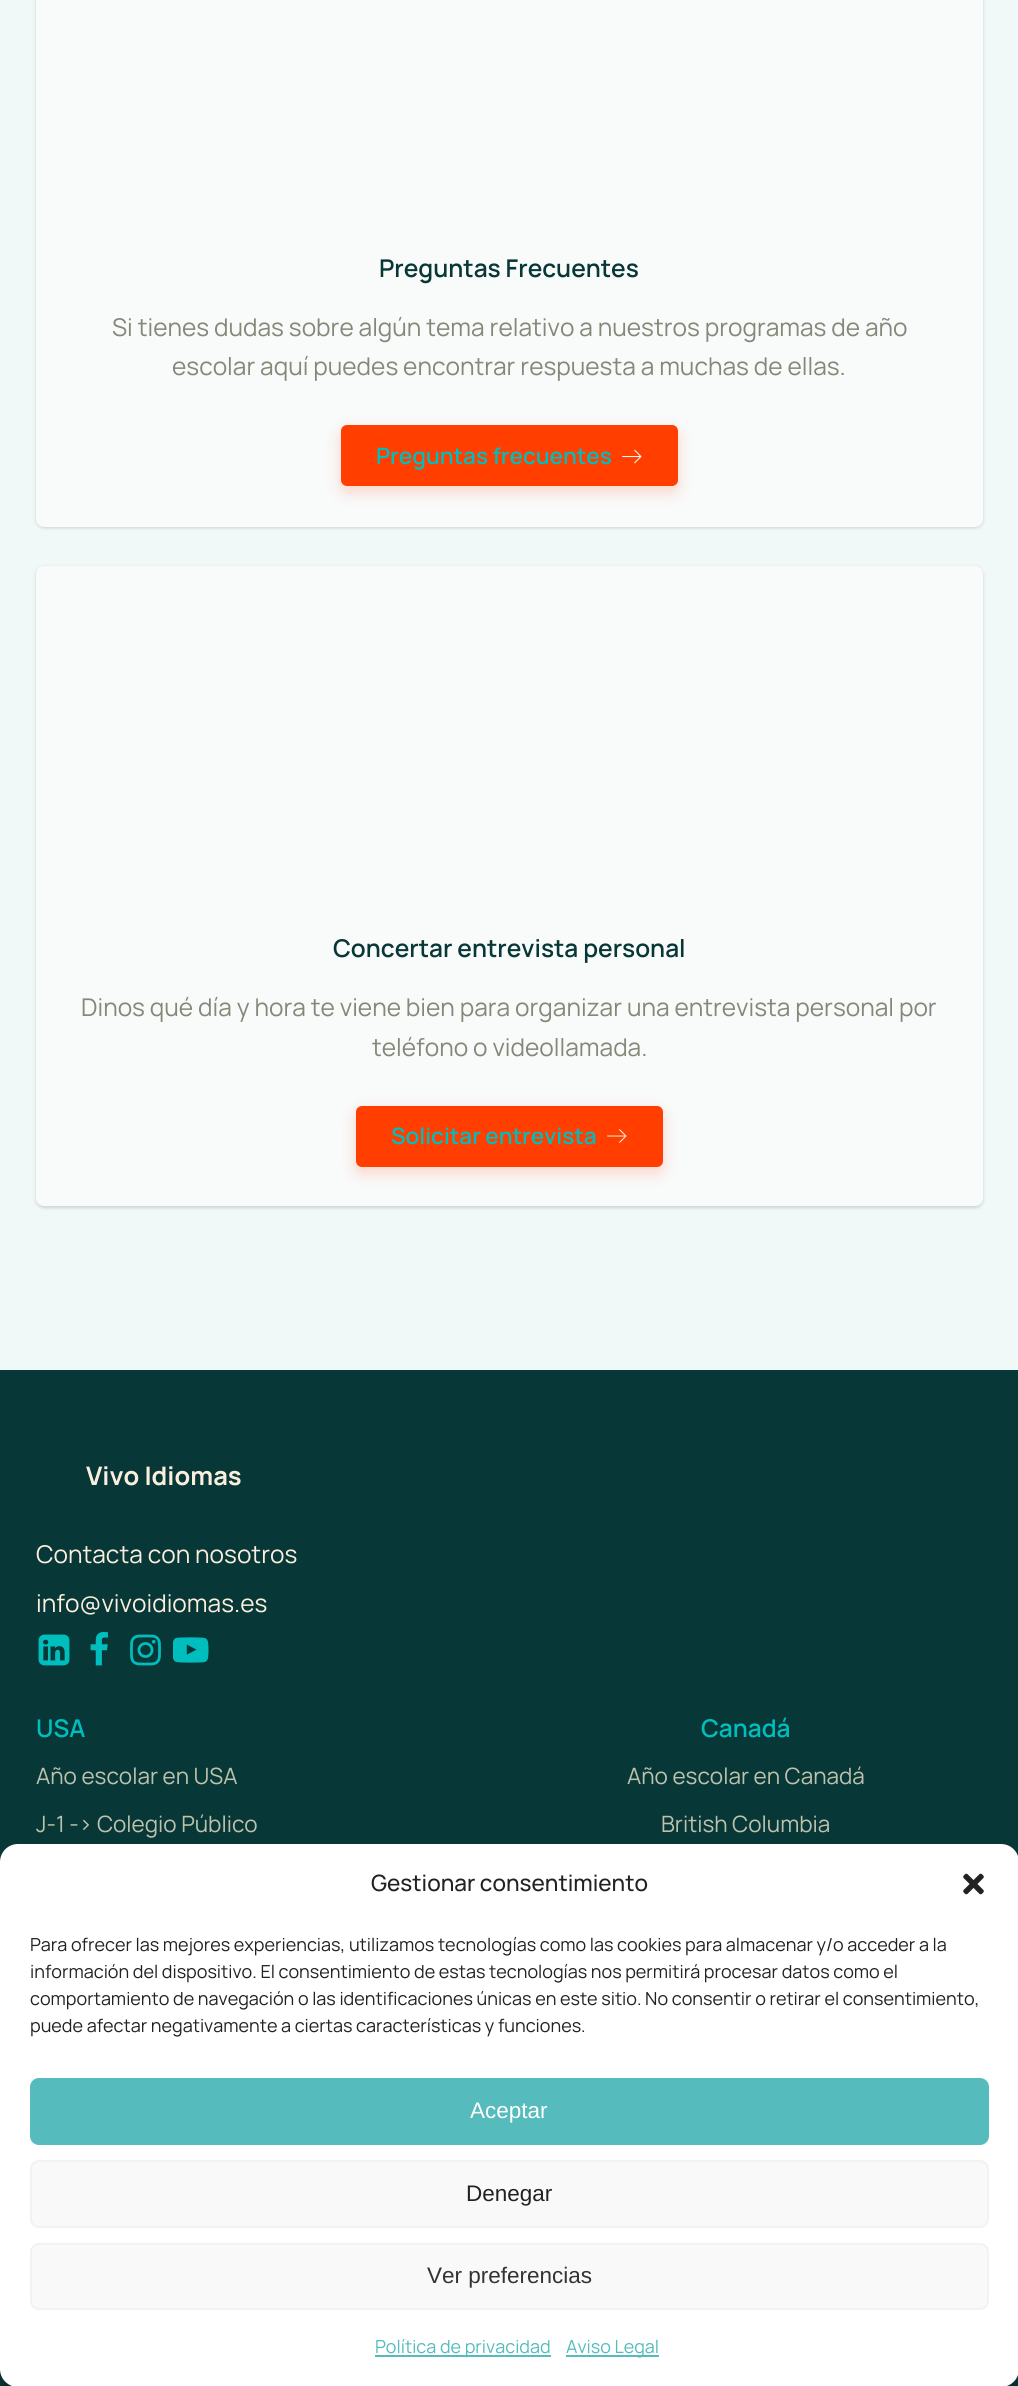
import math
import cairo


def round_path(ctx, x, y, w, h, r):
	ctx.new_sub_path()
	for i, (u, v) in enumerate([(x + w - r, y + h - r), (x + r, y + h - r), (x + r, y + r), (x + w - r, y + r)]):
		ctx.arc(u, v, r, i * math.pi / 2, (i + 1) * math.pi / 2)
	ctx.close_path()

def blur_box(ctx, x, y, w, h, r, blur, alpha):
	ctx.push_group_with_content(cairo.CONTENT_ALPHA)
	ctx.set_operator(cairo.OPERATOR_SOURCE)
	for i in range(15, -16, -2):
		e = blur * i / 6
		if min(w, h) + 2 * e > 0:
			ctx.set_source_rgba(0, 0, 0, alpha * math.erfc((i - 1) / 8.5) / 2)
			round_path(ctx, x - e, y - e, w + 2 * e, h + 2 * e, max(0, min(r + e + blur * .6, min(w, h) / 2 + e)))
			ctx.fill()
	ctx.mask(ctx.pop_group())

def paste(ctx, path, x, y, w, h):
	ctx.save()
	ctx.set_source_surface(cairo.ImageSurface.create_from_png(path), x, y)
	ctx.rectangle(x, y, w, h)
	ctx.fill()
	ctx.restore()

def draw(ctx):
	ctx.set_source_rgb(0.945, 0.969, 0.969)
	ctx.paint()
	ctx.set_source_rgb(0, 0, 0)
	blur_box(ctx, 36, -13, 947, 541, 8, 1.5, 0.06)
	blur_box(ctx, 36, -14, 947, 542, 8, 2, 0.1)
	ctx.set_source_rgb(0.976, 0.98, 0.98)
	round_path(ctx, 36, -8, 947, 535, 8)
	ctx.fill()
	ctx.select_font_face('Manrope SemiBold')
	ctx.set_font_size(24.45)
	ctx.set_source_rgb(0.035, 0.216, 0.216)
	ctx.move_to(379, 277)
	ctx.show_text('Preguntas Frecuentes')
	ctx.select_font_face('Manrope')
	ctx.set_source_rgb(0.518, 0.533, 0.471)
	ctx.move_to(112, 336)
	ctx.show_text('Si tienes dudas sobre algún tema relativo a nuestros programas de año')
	ctx.move_to(172, 375)
	ctx.show_text('escolar aquí puedes encontrar respuesta a muchas de ellas.')
	ctx.set_source_rgb(1, 0.243, 0)
	blur_box(ctx, 341, 431, 337, 61, 6, 7, 0.2)
	ctx.set_source_rgb(1, 0.243, 0)
	round_path(ctx, 341, 425, 337, 61, 6)
	ctx.fill()
	ctx.select_font_face('Manrope SemiBold')
	ctx.set_font_size(22.5)
	ctx.set_source_rgb(0, 0.745, 0.741)
	ctx.move_to(376, 464)
	ctx.show_text('Preguntas frecuentes')
	paste(ctx, 'media/1.png', 622, 449, 20, 15)
	ctx.set_source_rgb(0, 0, 0)
	blur_box(ctx, 36, 567, 947, 641, 8, 1.5, 0.06)
	blur_box(ctx, 36, 567, 947, 641, 8, 2, 0.1)
	ctx.set_source_rgb(0.976, 0.98, 0.98)
	round_path(ctx, 36, 566, 947, 640, 8)
	ctx.fill()
	ctx.set_font_size(24.45)
	ctx.set_source_rgb(0.035, 0.216, 0.216)
	ctx.move_to(333, 957)
	ctx.show_text('Concertar entrevista personal')
	ctx.select_font_face('Manrope')
	ctx.set_source_rgb(0.518, 0.533, 0.471)
	ctx.move_to(81, 1016)
	ctx.show_text('Dinos qué día y hora te viene bien para organizar una entrevista personal por')
	ctx.move_to(372, 1056)
	ctx.show_text('teléfono o videollamada.')
	ctx.set_source_rgb(1, 0.243, 0)
	blur_box(ctx, 356, 1112, 307, 61, 6, 7, 0.2)
	ctx.set_source_rgb(1, 0.243, 0)
	round_path(ctx, 356, 1106, 307, 61, 6)
	ctx.fill()
	ctx.select_font_face('Manrope SemiBold')
	ctx.set_font_size(22.5)
	ctx.set_source_rgb(0, 0.745, 0.741)
	ctx.move_to(391, 1144)
	ctx.show_text('Solicitar entrevista')
	paste(ctx, 'media/2.png', 607, 1129, 20, 14)
	ctx.set_source_rgb(0.035, 0.216, 0.216)
	ctx.rectangle(0, 1370, 1018, 1016)
	ctx.fill()
	ctx.select_font_face('Manrope', cairo.FONT_SLANT_NORMAL, cairo.FONT_WEIGHT_BOLD)
	ctx.set_font_size(25.5)
	ctx.set_source_rgb(0.98, 0.937, 0.867)
	ctx.move_to(86, 1485)
	ctx.show_text('Vivo Idiomas')
	ctx.select_font_face('Manrope')
	ctx.set_font_size(24.45)
	ctx.move_to(36, 1563)
	ctx.show_text('Contacta con nosotros')
	ctx.move_to(36, 1612)
	ctx.show_text('info@vivoidiomas.es')
	paste(ctx, 'media/3.png', 38, 1634, 32, 32)
	paste(ctx, 'media/4.png', 90, 1632, 18, 34)
	paste(ctx, 'media/5.png', 130, 1634, 31, 32)
	paste(ctx, 'media/6.png', 173, 1637, 36, 26)
	ctx.select_font_face('Manrope SemiBold')
	ctx.set_source_rgb(0, 0.745, 0.741)
	ctx.move_to(36, 1737)
	ctx.show_text('USA')
	ctx.select_font_face('Manrope')
	ctx.set_font_size(22.5)
	ctx.set_source_rgb(0.741, 0.761, 0.678)
	ctx.move_to(36, 1784)
	ctx.show_text('Año escolar en USA')
	ctx.move_to(36, 1832)
	ctx.show_text('J-1 -> Colegio Público')
	ctx.select_font_face('Manrope SemiBold')
	ctx.set_font_size(24.45)
	ctx.set_source_rgb(0, 0.745, 0.741)
	ctx.move_to(701, 1737)
	ctx.show_text('Canadá')
	ctx.select_font_face('Manrope')
	ctx.set_font_size(22.5)
	ctx.set_source_rgb(0.741, 0.761, 0.678)
	ctx.move_to(627, 1784)
	ctx.show_text('Año escolar en Canadá')
	ctx.move_to(661, 1832)
	ctx.show_text('British Columbia')
	ctx.set_source_rgb(0, 0, 0)
	blur_box(ctx, 0, 1853, 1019, 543, 18, 4.5, 0.23)
	ctx.set_source_rgb(1, 1, 1)
	round_path(ctx, 0, 1844, 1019, 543, 18)
	ctx.fill()
	ctx.select_font_face('Manrope Medium')
	ctx.set_source_rgb(0.133, 0.133, 0.133)
	ctx.move_to(371, 1891)
	ctx.show_text('Gestionar consentimiento')
	paste(ctx, 'media/7.png', 963, 1873, 21, 22)
	ctx.select_font_face('Manrope')
	ctx.set_font_size(18)
	for x, y, s in [
		(30, 1951, 'Para ofrecer las mejores experiencias, utilizamos tecnologías como las cookies para almacenar y/o acceder a la'),
		(30, 1978, 'información del dispositivo. El consentimiento de estas tecnologías nos permitirá procesar datos como el'),
		(30, 2005, 'comportamiento de navegación o las identificaciones únicas en este sitio. No consentir o retirar el consentimiento,'),
		(30, 2032, 'puede afectar negativamente a ciertas características y funciones.'),
	]:
		ctx.move_to(x, y)
		ctx.show_text(s)
	ctx.set_source_rgb(0.333, 0.733, 0.737)
	round_path(ctx, 31, 2079, 957, 65, 8)
	ctx.fill_preserve()
	ctx.stroke()
	ctx.select_font_face('Liberation Sans')
	ctx.set_font_size(22.5)
	ctx.set_source_rgb(1, 1, 1)
	ctx.move_to(470, 2118)
	ctx.show_text('Aceptar')
	ctx.set_source_rgb(0.976, 0.976, 0.976)
	round_path(ctx, 31, 2161, 957, 66, 8)
	ctx.fill_preserve()
	ctx.set_source_rgb(0.949, 0.949, 0.949)
	ctx.stroke()
	ctx.set_source_rgb(0.133, 0.133, 0.133)
	ctx.move_to(466, 2201)
	ctx.show_text('Denegar')
	ctx.set_source_rgb(0.976, 0.976, 0.976)
	round_path(ctx, 31, 2244, 957, 65, 8)
	ctx.fill_preserve()
	ctx.set_source_rgb(0.949, 0.949, 0.949)
	ctx.stroke()
	ctx.set_source_rgb(0.2, 0.2, 0.2)
	ctx.move_to(427, 2283)
	ctx.show_text('Ver preferencias')
	ctx.set_source_rgb(0.333, 0.733, 0.737)
	ctx.rectangle(375, 2355, 176, 2)
	ctx.fill()
	ctx.select_font_face('Manrope')
	ctx.set_font_size(18)
	ctx.move_to(375, 2353)
	ctx.show_text('Política de privacidad')
	ctx.rectangle(566, 2355, 93, 2)
	ctx.fill()
	ctx.move_to(566, 2353)
	ctx.show_text('Aviso Legal')


surface = cairo.ImageSurface(cairo.FORMAT_RGB24, 1018, 2386)
ctx = cairo.Context(surface)
options = cairo.FontOptions()
options.set_hint_metrics(cairo.HINT_METRICS_OFF)
options.set_hint_style(cairo.HINT_STYLE_NONE)
ctx.set_font_options(options)
ctx.set_miter_limit(4)
draw(ctx)
surface.write_to_png('image.png')
